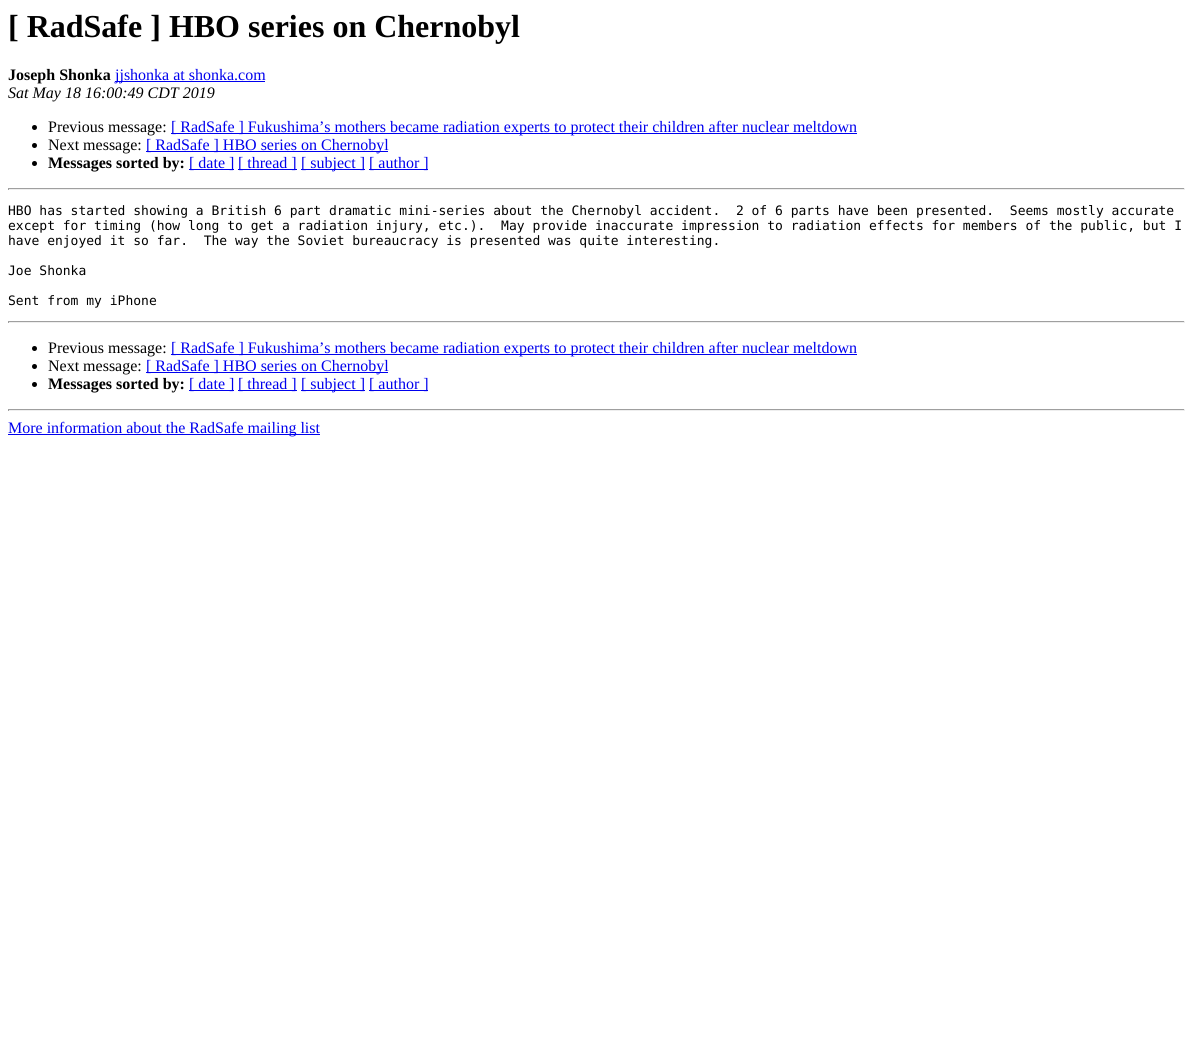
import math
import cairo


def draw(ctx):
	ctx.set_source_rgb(1, 1, 1)
	ctx.paint()
	ctx.select_font_face('Liberation Serif', cairo.FONT_SLANT_NORMAL, cairo.FONT_WEIGHT_BOLD)
	ctx.set_font_size(32)
	ctx.set_source_rgb(0, 0, 0)
	ctx.move_to(8, 37)
	ctx.show_text('[ RadSafe ] HBO series on Chernobyl')
	ctx.set_font_size(16)
	ctx.move_to(8, 80)
	ctx.show_text('Joseph Shonka')
	ctx.set_source_rgb(0, 0, 0.933)
	ctx.rectangle(115, 81, 150, 1)
	ctx.fill()
	ctx.select_font_face('Liberation Serif')
	ctx.move_to(115, 80)
	ctx.show_text('jjshonka at shonka.com')
	ctx.select_font_face('Liberation Serif', cairo.FONT_SLANT_ITALIC)
	ctx.set_source_rgb(0, 0, 0)
	ctx.move_to(8, 98)
	ctx.show_text('Sat May 18 16:00:49 CDT 2019')
	ctx.new_path()
	ctx.arc(34.5, 127.5, 2.5, 0, 2 * math.pi)
	ctx.fill()
	ctx.select_font_face('Liberation Serif')
	ctx.move_to(48, 132)
	ctx.show_text('Previous message:')
	ctx.set_source_rgb(0, 0, 0.933)
	ctx.rectangle(171, 133, 686, 1)
	ctx.fill()
	ctx.move_to(171, 132)
	ctx.show_text('[ RadSafe ] Fukushima’s mothers became radiation experts to protect their children after nuclear meltdown')
	ctx.set_source_rgb(0, 0, 0)
	ctx.new_path()
	ctx.arc(34.5, 145.5, 2.5, 0, 2 * math.pi)
	ctx.fill()
	ctx.move_to(48, 150)
	ctx.show_text('Next message:')
	ctx.set_source_rgb(0, 0, 0.933)
	ctx.rectangle(146, 151, 242, 1)
	ctx.fill()
	ctx.move_to(146, 150)
	ctx.show_text('[ RadSafe ] HBO series on Chernobyl')
	ctx.set_source_rgb(0, 0, 0)
	ctx.new_path()
	ctx.arc(34.5, 163.5, 2.5, 0, 2 * math.pi)
	ctx.fill()
	ctx.select_font_face('Liberation Serif', cairo.FONT_SLANT_NORMAL, cairo.FONT_WEIGHT_BOLD)
	ctx.move_to(48, 168)
	ctx.show_text('Messages sorted by:')
	ctx.set_source_rgb(0, 0, 0.933)
	ctx.rectangle(189, 169, 45, 1)
	ctx.fill()
	ctx.select_font_face('Liberation Serif')
	ctx.move_to(189, 168)
	ctx.show_text('[ date ]')
	ctx.rectangle(238, 169, 59, 1)
	ctx.fill()
	ctx.move_to(238, 168)
	ctx.show_text('[ thread ]')
	ctx.rectangle(301, 169, 64, 1)
	ctx.fill()
	ctx.move_to(301, 168)
	ctx.show_text('[ subject ]')
	ctx.rectangle(369, 169, 59, 1)
	ctx.fill()
	ctx.move_to(369, 168)
	ctx.show_text('[ author ]')
	ctx.set_source_rgb(0.624, 0.624, 0.624)
	ctx.rectangle(8, 188, 1177, 1)
	ctx.fill()
	ctx.set_source_rgb(0.933, 0.933, 0.933)
	ctx.rectangle(1184, 188, 1, 2)
	ctx.rectangle(8, 189, 1177, 1)
	ctx.fill()
	ctx.set_source_rgb(0.624, 0.624, 0.624)
	ctx.rectangle(8, 188, 1, 2)
	ctx.fill()
	ctx.select_font_face('DejaVu Sans Mono')
	ctx.set_font_size(13)
	ctx.set_source_rgb(0, 0, 0)
	for x, y, s in [
		(8, 215, 'HBO has started showing a British 6 part dramatic mini-series about the Chernobyl accident.  2 of 6 parts have been presented.  Seems mostly accurate'),
		(8, 230, 'except for timing (how long to get a radiation injury, etc.).  May provide inaccurate impression to radiation effects for members of the public, but I'),
		(8, 245, 'have enjoyed it so far.  The way the Soviet bureaucracy is presented was quite interesting.'),
		(8, 275, 'Joe Shonka'),
		(8, 305, 'Sent from my iPhone'),
	]:
		ctx.move_to(x, y)
		ctx.show_text(s)
	ctx.set_source_rgb(0.624, 0.624, 0.624)
	ctx.rectangle(8, 321, 1177, 1)
	ctx.fill()
	ctx.set_source_rgb(0.933, 0.933, 0.933)
	ctx.rectangle(1184, 321, 1, 2)
	ctx.rectangle(8, 322, 1177, 1)
	ctx.fill()
	ctx.set_source_rgb(0.624, 0.624, 0.624)
	ctx.rectangle(8, 321, 1, 2)
	ctx.fill()
	ctx.set_source_rgb(0, 0, 0)
	ctx.arc(34.5, 348.5, 2.5, 0, 2 * math.pi)
	ctx.fill()
	ctx.select_font_face('Liberation Serif')
	ctx.set_font_size(16)
	ctx.move_to(48, 353)
	ctx.show_text('Previous message:')
	ctx.set_source_rgb(0, 0, 0.933)
	ctx.rectangle(171, 354, 686, 1)
	ctx.fill()
	ctx.move_to(171, 353)
	ctx.show_text('[ RadSafe ] Fukushima’s mothers became radiation experts to protect their children after nuclear meltdown')
	ctx.set_source_rgb(0, 0, 0)
	ctx.new_path()
	ctx.arc(34.5, 366.5, 2.5, 0, 2 * math.pi)
	ctx.fill()
	ctx.move_to(48, 371)
	ctx.show_text('Next message:')
	ctx.set_source_rgb(0, 0, 0.933)
	ctx.rectangle(146, 372, 242, 1)
	ctx.fill()
	ctx.move_to(146, 371)
	ctx.show_text('[ RadSafe ] HBO series on Chernobyl')
	ctx.set_source_rgb(0, 0, 0)
	ctx.new_path()
	ctx.arc(34.5, 384.5, 2.5, 0, 2 * math.pi)
	ctx.fill()
	ctx.select_font_face('Liberation Serif', cairo.FONT_SLANT_NORMAL, cairo.FONT_WEIGHT_BOLD)
	ctx.move_to(48, 389)
	ctx.show_text('Messages sorted by:')
	ctx.set_source_rgb(0, 0, 0.933)
	ctx.rectangle(189, 390, 45, 1)
	ctx.fill()
	ctx.select_font_face('Liberation Serif')
	ctx.move_to(189, 389)
	ctx.show_text('[ date ]')
	ctx.rectangle(238, 390, 59, 1)
	ctx.fill()
	ctx.move_to(238, 389)
	ctx.show_text('[ thread ]')
	ctx.rectangle(301, 390, 64, 1)
	ctx.fill()
	ctx.move_to(301, 389)
	ctx.show_text('[ subject ]')
	ctx.rectangle(369, 390, 59, 1)
	ctx.fill()
	ctx.move_to(369, 389)
	ctx.show_text('[ author ]')
	ctx.set_source_rgb(0.624, 0.624, 0.624)
	ctx.rectangle(8, 409, 1177, 1)
	ctx.fill()
	ctx.set_source_rgb(0.933, 0.933, 0.933)
	ctx.rectangle(1184, 409, 1, 2)
	ctx.rectangle(8, 410, 1177, 1)
	ctx.fill()
	ctx.set_source_rgb(0.624, 0.624, 0.624)
	ctx.rectangle(8, 409, 1, 2)
	ctx.fill()
	ctx.set_source_rgb(0, 0, 0.933)
	ctx.rectangle(8, 434, 312, 1)
	ctx.fill()
	ctx.move_to(8, 433)
	ctx.show_text('More information about the RadSafe mailing list')


surface = cairo.ImageSurface(cairo.FORMAT_RGB24, 1193, 1049)
ctx = cairo.Context(surface)
options = cairo.FontOptions()
options.set_hint_metrics(cairo.HINT_METRICS_OFF)
options.set_hint_style(cairo.HINT_STYLE_NONE)
ctx.set_font_options(options)
ctx.set_miter_limit(4)
draw(ctx)
surface.write_to_png('image.png')
